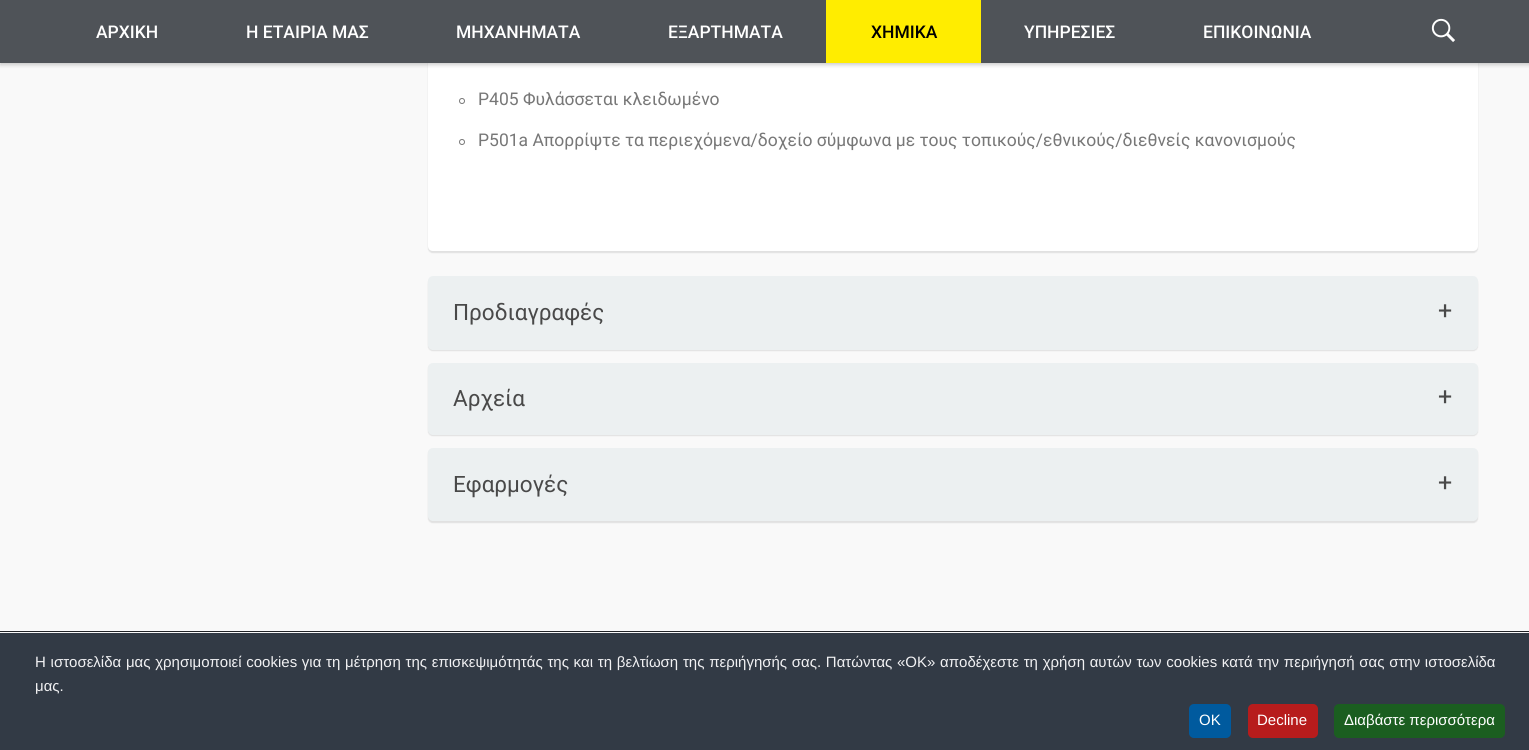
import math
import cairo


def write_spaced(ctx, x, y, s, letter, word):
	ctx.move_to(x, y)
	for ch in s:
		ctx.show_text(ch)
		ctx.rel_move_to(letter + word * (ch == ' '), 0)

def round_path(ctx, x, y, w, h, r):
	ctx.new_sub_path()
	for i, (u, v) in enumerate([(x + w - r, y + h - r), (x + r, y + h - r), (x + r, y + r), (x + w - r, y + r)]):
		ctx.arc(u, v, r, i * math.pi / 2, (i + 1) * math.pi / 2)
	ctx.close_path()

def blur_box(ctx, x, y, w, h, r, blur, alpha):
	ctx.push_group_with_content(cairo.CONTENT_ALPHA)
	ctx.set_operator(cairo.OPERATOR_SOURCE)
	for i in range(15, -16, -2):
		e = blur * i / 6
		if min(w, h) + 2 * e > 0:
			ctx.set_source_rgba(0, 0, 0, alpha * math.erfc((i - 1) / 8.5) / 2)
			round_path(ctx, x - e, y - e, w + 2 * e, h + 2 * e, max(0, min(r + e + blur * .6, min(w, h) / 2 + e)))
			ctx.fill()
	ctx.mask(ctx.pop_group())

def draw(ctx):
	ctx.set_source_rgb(0.976, 0.976, 0.976)
	ctx.paint()
	ctx.set_source_rgb(0, 0, 0)
	blur_box(ctx, 428, -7, 1050, 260, 5, 0.5, 0.1)
	ctx.set_source_rgb(1, 1, 1)
	ctx.new_path()
	ctx.move_to(428, -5)
	ctx.line_to(1478, -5)
	ctx.line_to(1478, 246)
	ctx.curve_to(1478, 249, 1476, 251, 1473, 251)
	ctx.line_to(433, 251)
	ctx.curve_to(430, 251, 428, 249, 428, 246)
	ctx.close_path()
	ctx.fill()
	ctx.set_source_rgb(0, 0, 0)
	blur_box(ctx, 0, 3, 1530, 62, 0, 2, 0.2)
	ctx.set_source_rgb(0.31, 0.325, 0.345)
	ctx.rectangle(0, 0, 1529, 63)
	ctx.fill()
	ctx.select_font_face('Roboto Medium')
	ctx.set_font_size(17.5)
	ctx.set_source_rgb(1, 1, 1)
	for x, y, s in [
		(96, 38, 'ΑΡΧΙΚΗ'),
		(246, 38, 'Η ΕΤΑΙΡΙΑ ΜΑΣ'),
		(456, 38, 'ΜΗΧΑΝΗΜΑΤΑ'),
		(668, 38, 'ΕΞΑΡΤΗΜΑΤΑ'),
	]:
		ctx.move_to(x, y)
		ctx.show_text(s)
	ctx.set_source_rgb(1, 0.929, 0)
	ctx.rectangle(826, 0, 155, 63)
	ctx.fill()
	ctx.set_source_rgb(0, 0, 0)
	ctx.move_to(871, 38)
	ctx.show_text('ΧΗΜΙΚΑ')
	ctx.set_source_rgb(1, 1, 1)
	ctx.move_to(1024, 38)
	ctx.show_text('ΥΠΗΡΕΣΙΕΣ')
	ctx.move_to(1203, 38)
	ctx.show_text('ΕΠΙΚΟΙΝΩΝΙΑ')
	ctx.select_font_face('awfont')
	ctx.set_font_size(31)
	ctx.move_to(1428, 46)
	ctx.show_text('D')
	ctx.new_path()
	ctx.arc(462, 101, 2.5, 0, 2 * math.pi)
	ctx.set_source_rgb(0.467, 0.467, 0.467)
	ctx.set_line_width(1)
	ctx.stroke()
	ctx.select_font_face('Roboto')
	ctx.set_font_size(17.5)
	ctx.move_to(478, 105)
	ctx.show_text('P405 Φυλάσσεται κλειδωμένο')
	ctx.new_path()
	ctx.arc(462, 142, 2.5, 0, 2 * math.pi)
	ctx.stroke()
	ctx.move_to(478, 146)
	ctx.show_text('P501a Απορρίψτε τα περιεχόμενα/δοχείο σύμφωνα με τους τοπικούς/εθνικούς/διεθνείς κανονισμούς')
	ctx.set_source_rgb(0, 0, 0)
	blur_box(ctx, 428, 278, 1050, 73, 5, 0.5, 0.1)
	ctx.set_source_rgb(0.925, 0.941, 0.945)
	round_path(ctx, 428, 276, 1050, 74, 5)
	ctx.fill()
	ctx.set_font_size(22.5)
	ctx.set_source_rgb(0.286, 0.286, 0.286)
	ctx.move_to(453, 320)
	ctx.show_text('Προδιαγραφές')
	ctx.set_font_size(25)
	ctx.move_to(1438, 319)
	ctx.show_text('+')
	ctx.set_source_rgb(0, 0, 0)
	blur_box(ctx, 428, 364, 1050, 72, 5, 0.5, 0.1)
	ctx.set_source_rgb(0.925, 0.941, 0.945)
	round_path(ctx, 428, 363, 1050, 72, 5)
	ctx.fill()
	ctx.set_font_size(22.5)
	ctx.set_source_rgb(0.286, 0.286, 0.286)
	ctx.move_to(453, 406)
	ctx.show_text('Αρχεία')
	ctx.set_font_size(25)
	ctx.move_to(1438, 405)
	ctx.show_text('+')
	ctx.set_source_rgb(0, 0, 0)
	blur_box(ctx, 428, 449, 1050, 74, 5, 0.5, 0.1)
	ctx.set_source_rgb(0.925, 0.941, 0.945)
	round_path(ctx, 428, 448, 1050, 73, 5)
	ctx.fill()
	ctx.set_font_size(22.5)
	ctx.set_source_rgb(0.286, 0.286, 0.286)
	ctx.move_to(453, 492)
	ctx.show_text('Εφαρμογές')
	ctx.set_font_size(25)
	ctx.move_to(1438, 491)
	ctx.show_text('+')
	ctx.set_source_rgb(0.196, 0.227, 0.271)
	ctx.rectangle(0, 633, 1529, 117)
	ctx.fill()
	ctx.set_source_rgb(0.125, 0.133, 0.149)
	ctx.rectangle(0, 631, 1529, 1)
	ctx.fill()
	ctx.select_font_face('Liberation Sans')
	ctx.set_font_size(15)
	ctx.set_source_rgb(0.945, 0.945, 0.953)
	write_spaced(ctx, 35, 667, 'Η ιστοσελίδα μας χρησιμοποιεί cookies για τη μέτρηση της επισκεψιμότητάς της και τη βελτίωση της περιήγησής σας. Πατώντας «OK» αποδέχεστε τη χρήση αυτών των cookies κατά την περιήγησή σας στην ιστοσελίδα', 0, 0.55)
	ctx.move_to(35, 691)
	ctx.show_text('μας.')
	ctx.set_source_rgb(0, 0.353, 0.62)
	round_path(ctx, 1189, 704, 42, 34, 5)
	ctx.fill()
	ctx.set_source_rgb(1, 1, 1)
	ctx.move_to(1199, 725)
	ctx.show_text('OK')
	ctx.set_source_rgb(0.718, 0.11, 0.11)
	round_path(ctx, 1248, 704, 70, 34, 5)
	ctx.fill()
	ctx.set_source_rgb(1, 1, 1)
	ctx.move_to(1257, 725)
	ctx.show_text('Decline')
	ctx.set_source_rgb(0.106, 0.369, 0.125)
	round_path(ctx, 1334, 704, 171, 34, 5)
	ctx.fill()
	ctx.set_source_rgb(1, 1, 1)
	ctx.move_to(1344, 725)
	ctx.show_text('Διαβάστε περισσότερα')


surface = cairo.ImageSurface(cairo.FORMAT_RGB24, 1529, 750)
ctx = cairo.Context(surface)
options = cairo.FontOptions()
options.set_hint_metrics(cairo.HINT_METRICS_OFF)
options.set_hint_style(cairo.HINT_STYLE_NONE)
ctx.set_font_options(options)
ctx.set_miter_limit(4)
draw(ctx)
surface.write_to_png('image.png')
